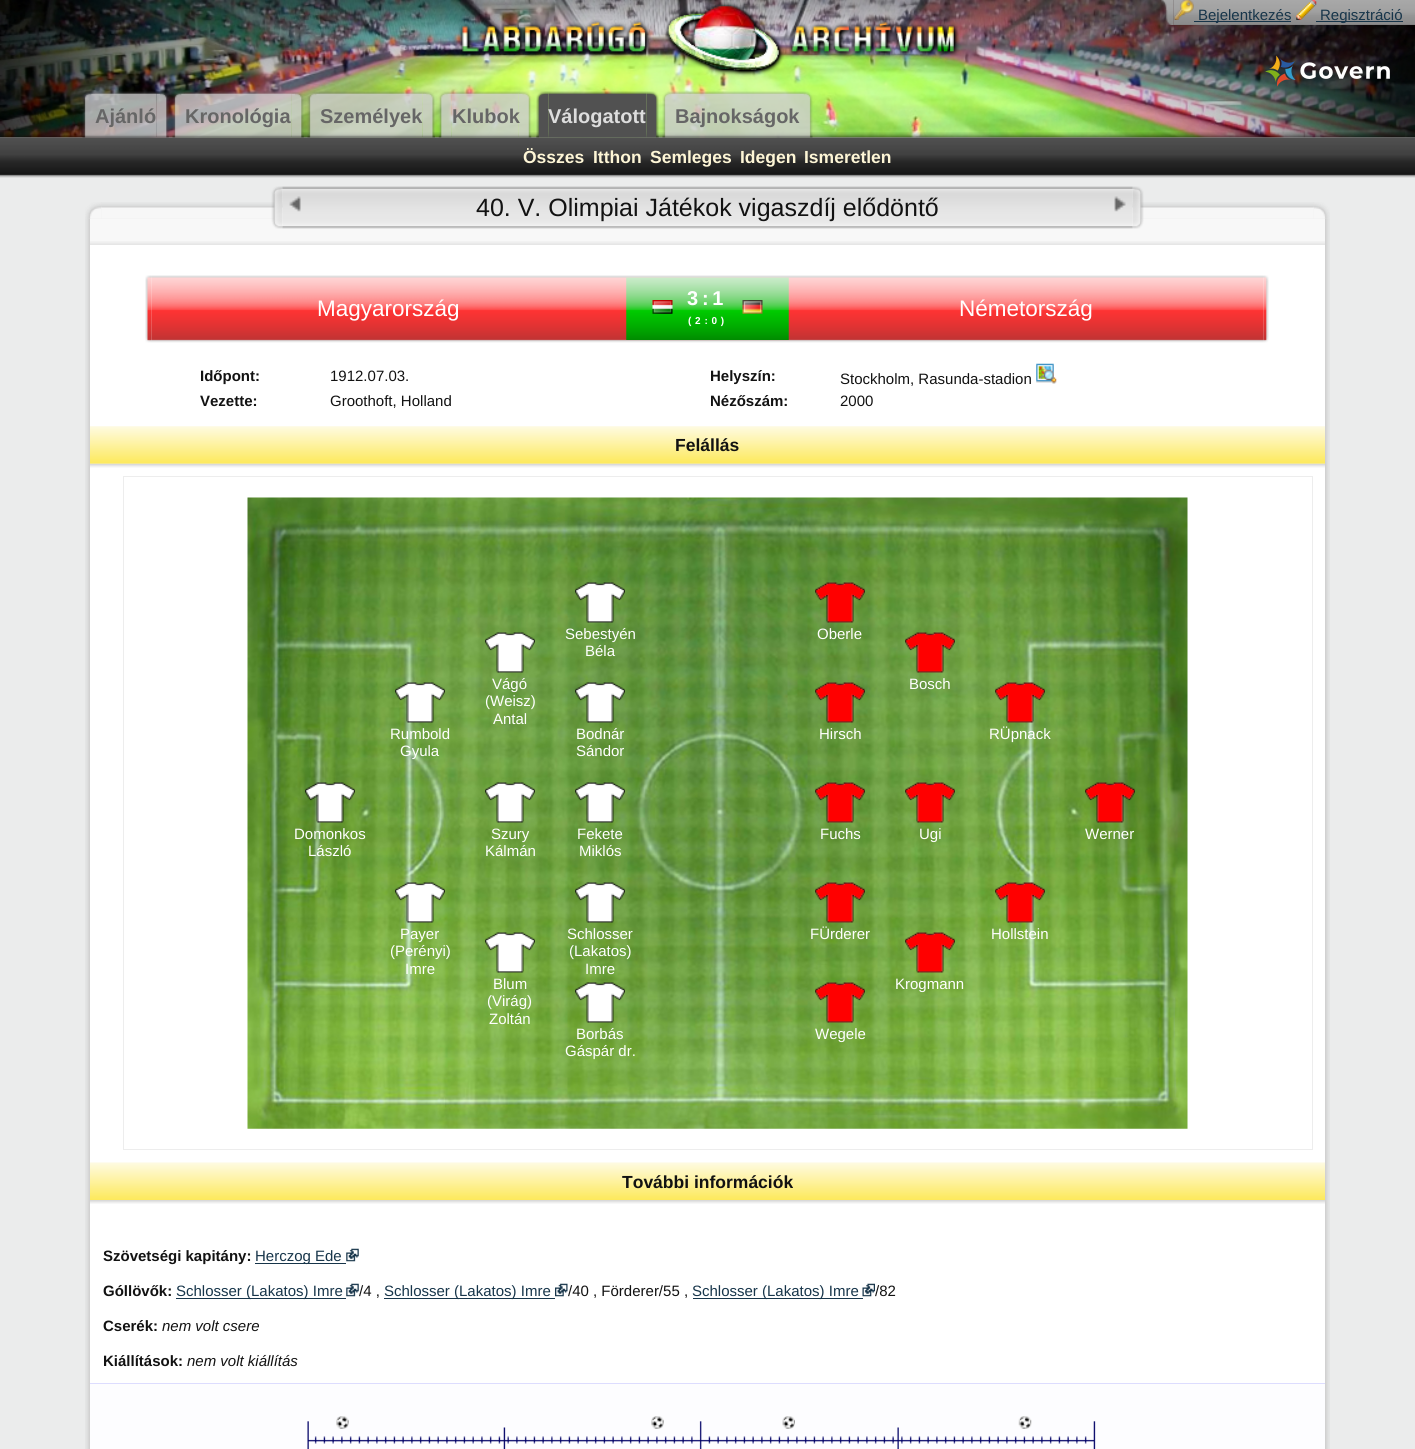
import math
import cairo


def write_spaced(ctx, x, y, s, letter, word):
	ctx.move_to(x, y)
	for ch in s:
		ctx.show_text(ch)
		ctx.rel_move_to(letter + word * (ch == ' '), 0)

def paste(ctx, path, x, y, w, h):
	ctx.save()
	ctx.set_source_surface(cairo.ImageSurface.create_from_png(path), x, y)
	ctx.rectangle(x, y, w, h)
	ctx.fill()
	ctx.restore()

def draw(ctx):
	ctx.set_source_rgb(1, 1, 1)
	ctx.paint()
	paste(ctx, 'media/1.png', 0, 137, 1415, 1)
	paste(ctx, 'media/2.png', 0, 0, 1415, 138)
	paste(ctx, 'media/3.png', 0, 132, 1415, 6)
	paste(ctx, 'media/4.png', 1161, 0, 13, 25)
	paste(ctx, 'media/5.png', 1173, 0, 242, 25)
	paste(ctx, 'media/6.png', 1173, 0, 21, 20)
	ctx.set_source_rgb(0.09, 0.208, 0.29)
	ctx.rectangle(1194, 21, 97, 1)
	ctx.fill()
	ctx.select_font_face('Liberation Sans')
	ctx.set_font_size(15)
	ctx.move_to(1198, 20)
	ctx.show_text('Bejelentkezés')
	paste(ctx, 'media/7.png', 1296, 0, 21, 20)
	ctx.rectangle(1316, 21, 87, 1)
	ctx.fill()
	ctx.move_to(1320, 20)
	ctx.show_text('Regisztráció')
	paste(ctx, 'media/8.png', 1265, 55, 125, 32)
	paste(ctx, 'media/9.png', 458, 2, 502, 75)
	ctx.set_source_rgb(0.918, 0.922, 0.922)
	ctx.rectangle(0, 174, 1415, 1275)
	ctx.fill()
	paste(ctx, 'media/28.png', 0, 137, 1415, 41)
	paste(ctx, 'media/10.png', 82, 92, 13, 46)
	paste(ctx, 'media/11.png', 156, 92, 13, 46)
	paste(ctx, 'media/12.png', 95, 91, 62, 47)
	ctx.select_font_face('Liberation Sans', cairo.FONT_SLANT_NORMAL, cairo.FONT_WEIGHT_BOLD)
	ctx.set_font_size(20)
	ctx.set_source_rgb(0.4, 0.4, 0.4)
	ctx.move_to(95, 123)
	ctx.show_text('Ajánló')
	paste(ctx, 'media/13.png', 172, 91, 13, 47)
	paste(ctx, 'media/14.png', 291, 91, 13, 47)
	paste(ctx, 'media/15.png', 185, 91, 107, 47)
	ctx.move_to(185, 123)
	ctx.show_text('Kronológia')
	paste(ctx, 'media/16.png', 307, 91, 13, 47)
	paste(ctx, 'media/17.png', 422, 91, 13, 47)
	paste(ctx, 'media/18.png', 320, 91, 103, 47)
	ctx.move_to(320, 123)
	ctx.show_text('Személyek')
	paste(ctx, 'media/19.png', 438, 91, 14, 47)
	paste(ctx, 'media/20.png', 518, 91, 14, 47)
	paste(ctx, 'media/21.png', 451, 91, 68, 47)
	ctx.move_to(452, 123)
	ctx.show_text('Klubok')
	paste(ctx, 'media/22.png', 536, 91, 13, 47)
	paste(ctx, 'media/23.png', 646, 91, 13, 47)
	paste(ctx, 'media/24.png', 548, 91, 99, 47)
	ctx.set_source_rgb(0.867, 0.867, 0.867)
	ctx.move_to(548, 123)
	ctx.show_text('Válogatott')
	paste(ctx, 'media/25.png', 662, 91, 13, 47)
	paste(ctx, 'media/26.png', 800, 91, 13, 47)
	paste(ctx, 'media/27.png', 675, 91, 125, 47)
	ctx.set_source_rgb(0.4, 0.4, 0.4)
	ctx.move_to(675, 123)
	ctx.show_text('Bajnokságok')
	ctx.set_font_size(17.5)
	ctx.set_source_rgb(0.996, 0.961, 0.839)
	for x, y, s in [
		(523, 163, 'Összes'),
		(593, 163, 'Itthon'),
		(650, 163, 'Semleges'),
		(740, 163, 'Idegen'),
		(804, 163, 'Ismeretlen'),
	]:
		ctx.move_to(x, y)
		ctx.show_text(s)
	paste(ctx, 'media/78.png', 85, 202, 17, 17)
	paste(ctx, 'media/29.png', 85, 218, 5, 1231)
	paste(ctx, 'media/79.png', 1313, 202, 17, 17)
	paste(ctx, 'media/30.png', 1325, 218, 5, 1231)
	ctx.set_source_rgb(0.969, 0.969, 0.969)
	ctx.rectangle(90, 219, 1235, 26)
	ctx.fill()
	paste(ctx, 'media/80.png', 101, 202, 1213, 17)
	paste(ctx, 'media/31.png', 271, 186, 12, 43)
	paste(ctx, 'media/32.png', 1132, 186, 12, 43)
	paste(ctx, 'media/33.png', 282, 186, 851, 43)
	paste(ctx, 'media/34.png', 289, 196, 12, 16)
	ctx.select_font_face('Liberation Sans')
	ctx.set_font_size(25)
	ctx.set_source_rgb(0.071, 0.071, 0.071)
	ctx.move_to(476, 216)
	ctx.show_text('40. V. Olimpiai Játékok vigaszdíj elődöntő')
	paste(ctx, 'media/35.png', 1114, 196, 12, 16)
	paste(ctx, 'media/36.png', 90, 241, 1235, 4)
	ctx.set_source_rgb(1, 1, 1)
	ctx.rectangle(90, 245, 1235, 1138)
	ctx.fill()
	paste(ctx, 'media/37.png', 145, 275, 7, 68)
	paste(ctx, 'media/38.png', 1263, 275, 6, 68)
	paste(ctx, 'media/39.png', 151, 275, 1113, 68)
	ctx.set_font_size(22.5)
	ctx.move_to(317, 316)
	ctx.show_text('Magyarország')
	paste(ctx, 'media/40.png', 626, 277, 163, 63)
	paste(ctx, 'media/41.png', 652, 300, 21, 14)
	ctx.select_font_face('Liberation Sans', cairo.FONT_SLANT_NORMAL, cairo.FONT_WEIGHT_BOLD)
	ctx.set_font_size(20)
	write_spaced(ctx, 687, 305, '3:1', 3.75, 0)
	paste(ctx, 'media/42.png', 742, 300, 21, 14)
	ctx.set_font_size(10)
	write_spaced(ctx, 688, 324, '(2:0)', 3.75, 0)
	ctx.select_font_face('Liberation Sans')
	ctx.set_font_size(22.5)
	ctx.move_to(959, 316)
	ctx.show_text('Németország')
	ctx.select_font_face('Liberation Sans', cairo.FONT_SLANT_NORMAL, cairo.FONT_WEIGHT_BOLD)
	ctx.set_font_size(15)
	ctx.set_source_rgb(0.071, 0.071, 0.071)
	ctx.move_to(200, 381)
	ctx.show_text('Időpont:')
	ctx.select_font_face('Liberation Sans')
	ctx.move_to(330, 381)
	ctx.show_text('1912.07.03.')
	ctx.select_font_face('Liberation Sans', cairo.FONT_SLANT_NORMAL, cairo.FONT_WEIGHT_BOLD)
	ctx.move_to(710, 381)
	ctx.show_text('Helyszín:')
	ctx.select_font_face('Liberation Sans')
	ctx.move_to(840, 384)
	ctx.show_text('Stockholm, Rasunda-stadion')
	paste(ctx, 'media/43.png', 1036, 363, 21, 21)
	ctx.select_font_face('Liberation Sans', cairo.FONT_SLANT_NORMAL, cairo.FONT_WEIGHT_BOLD)
	ctx.move_to(200, 406)
	ctx.show_text('Vezette:')
	ctx.select_font_face('Liberation Sans')
	ctx.move_to(330, 406)
	ctx.show_text('Groothoft, Holland')
	ctx.select_font_face('Liberation Sans', cairo.FONT_SLANT_NORMAL, cairo.FONT_WEIGHT_BOLD)
	ctx.move_to(710, 406)
	ctx.show_text('Nézőszám:')
	ctx.select_font_face('Liberation Sans')
	ctx.move_to(840, 406)
	ctx.show_text('2000')
	paste(ctx, 'media/44.png', 90, 426, 1235, 38)
	ctx.select_font_face('Liberation Sans', cairo.FONT_SLANT_NORMAL, cairo.FONT_WEIGHT_BOLD)
	ctx.set_font_size(17.5)
	ctx.move_to(675, 451)
	ctx.show_text('Felállás')
	paste(ctx, 'media/45.png', 90, 463, 1235, 5)
	ctx.rectangle(123.5, 476.5, 1189, 673)
	ctx.set_source_rgb(0.929, 0.929, 0.929)
	ctx.set_line_width(1)
	ctx.stroke()
	paste(ctx, 'media/46.png', 247, 497, 941, 632)
	paste(ctx, 'media/47.png', 575, 582, 50, 41)
	ctx.select_font_face('Liberation Sans')
	ctx.set_font_size(15)
	ctx.set_source_rgb(1, 1, 1)
	ctx.move_to(565, 639)
	ctx.show_text('Sebestyén')
	ctx.move_to(585, 656)
	ctx.show_text('Béla')
	paste(ctx, 'media/48.png', 815, 582, 50, 41)
	ctx.move_to(817, 639)
	ctx.show_text('Oberle')
	paste(ctx, 'media/49.png', 485, 632, 50, 41)
	for x, y, s in [
		(492, 689, 'Vágó'),
		(485, 706, '(Weisz)'),
		(493, 724, 'Antal'),
	]:
		ctx.move_to(x, y)
		ctx.show_text(s)
	paste(ctx, 'media/50.png', 905, 632, 50, 41)
	ctx.move_to(909, 689)
	ctx.show_text('Bosch')
	paste(ctx, 'media/51.png', 395, 682, 50, 41)
	ctx.move_to(390, 739)
	ctx.show_text('Rumbold')
	ctx.move_to(400, 756)
	ctx.show_text('Gyula')
	paste(ctx, 'media/52.png', 575, 682, 50, 41)
	ctx.move_to(576, 739)
	ctx.show_text('Bodnár')
	ctx.move_to(576, 756)
	ctx.show_text('Sándor')
	paste(ctx, 'media/53.png', 815, 682, 50, 41)
	ctx.move_to(819, 739)
	ctx.show_text('Hirsch')
	paste(ctx, 'media/54.png', 995, 682, 50, 41)
	ctx.move_to(989, 739)
	ctx.show_text('RÜpnack')
	paste(ctx, 'media/55.png', 305, 782, 50, 41)
	ctx.move_to(294, 839)
	ctx.show_text('Domonkos')
	ctx.move_to(308, 856)
	ctx.show_text('László')
	paste(ctx, 'media/56.png', 485, 782, 50, 41)
	ctx.move_to(491, 839)
	ctx.show_text('Szury')
	ctx.move_to(485, 856)
	ctx.show_text('Kálmán')
	paste(ctx, 'media/57.png', 575, 782, 50, 41)
	ctx.move_to(577, 839)
	ctx.show_text('Fekete')
	ctx.move_to(579, 856)
	ctx.show_text('Miklós')
	paste(ctx, 'media/58.png', 815, 782, 50, 41)
	ctx.move_to(820, 839)
	ctx.show_text('Fuchs')
	paste(ctx, 'media/59.png', 905, 782, 50, 41)
	ctx.move_to(919, 839)
	ctx.show_text('Ugi')
	paste(ctx, 'media/60.png', 1085, 782, 50, 41)
	ctx.move_to(1085, 839)
	ctx.show_text('Werner')
	paste(ctx, 'media/61.png', 395, 882, 50, 41)
	for x, y, s in [
		(400, 939, 'Payer'),
		(390, 956, '(Perényi)'),
		(405, 974, 'Imre'),
	]:
		ctx.move_to(x, y)
		ctx.show_text(s)
	paste(ctx, 'media/62.png', 575, 882, 50, 41)
	for x, y, s in [
		(567, 939, 'Schlosser'),
		(569, 956, '(Lakatos)'),
		(585, 974, 'Imre'),
	]:
		ctx.move_to(x, y)
		ctx.show_text(s)
	paste(ctx, 'media/63.png', 815, 882, 50, 41)
	ctx.move_to(810, 939)
	ctx.show_text('FÜrderer')
	paste(ctx, 'media/64.png', 995, 882, 50, 41)
	ctx.move_to(991, 939)
	ctx.show_text('Hollstein')
	paste(ctx, 'media/65.png', 485, 932, 50, 41)
	for x, y, s in [
		(493, 989, 'Blum'),
		(487, 1006, '(Virág)'),
		(489, 1024, 'Zoltán'),
	]:
		ctx.move_to(x, y)
		ctx.show_text(s)
	paste(ctx, 'media/66.png', 905, 932, 50, 41)
	ctx.move_to(895, 989)
	ctx.show_text('Krogmann')
	paste(ctx, 'media/67.png', 575, 982, 50, 41)
	ctx.move_to(576, 1039)
	ctx.show_text('Borbás')
	ctx.move_to(565, 1056)
	ctx.show_text('Gáspár dr.')
	paste(ctx, 'media/68.png', 815, 982, 50, 41)
	ctx.move_to(815, 1039)
	ctx.show_text('Wegele')
	paste(ctx, 'media/69.png', 90, 1162, 1235, 38)
	ctx.select_font_face('Liberation Sans', cairo.FONT_SLANT_NORMAL, cairo.FONT_WEIGHT_BOLD)
	ctx.set_font_size(17.5)
	ctx.set_source_rgb(0.071, 0.071, 0.071)
	ctx.move_to(622, 1188)
	ctx.show_text('További információk')
	paste(ctx, 'media/70.png', 90, 1200, 1235, 4)
	ctx.set_font_size(15)
	ctx.move_to(103, 1261)
	ctx.show_text('Szövetségi kapitány:')
	ctx.set_source_rgb(0.09, 0.208, 0.29)
	ctx.rectangle(255, 1263, 91, 1)
	ctx.fill()
	ctx.select_font_face('Liberation Sans')
	ctx.move_to(255, 1261)
	ctx.show_text('Herczog Ede')
	paste(ctx, 'media/71.png', 346, 1248, 13, 14)
	ctx.select_font_face('Liberation Sans', cairo.FONT_SLANT_NORMAL, cairo.FONT_WEIGHT_BOLD)
	ctx.set_source_rgb(0.071, 0.071, 0.071)
	ctx.move_to(103, 1296)
	ctx.show_text('Góllövők:')
	ctx.set_source_rgb(0.09, 0.208, 0.29)
	ctx.rectangle(176, 1298, 170, 1)
	ctx.fill()
	ctx.select_font_face('Liberation Sans')
	ctx.move_to(176, 1296)
	ctx.show_text('Schlosser (Lakatos) Imre')
	paste(ctx, 'media/71.png', 346, 1283, 13, 14)
	ctx.set_source_rgb(0.071, 0.071, 0.071)
	ctx.move_to(359, 1296)
	ctx.show_text('/4 ,')
	ctx.set_source_rgb(0.09, 0.208, 0.29)
	ctx.rectangle(384, 1298, 171, 1)
	ctx.fill()
	ctx.move_to(384, 1296)
	ctx.show_text('Schlosser (Lakatos) Imre')
	paste(ctx, 'media/72.png', 555, 1283, 13, 14)
	ctx.set_source_rgb(0.071, 0.071, 0.071)
	ctx.move_to(568, 1296)
	ctx.show_text('/40 , Förderer/55 ,')
	ctx.set_source_rgb(0.09, 0.208, 0.29)
	ctx.rectangle(693, 1298, 170, 1)
	ctx.fill()
	ctx.move_to(692, 1296)
	ctx.show_text('Schlosser (Lakatos) Imre')
	paste(ctx, 'media/73.png', 862, 1283, 13, 14)
	ctx.set_source_rgb(0.071, 0.071, 0.071)
	ctx.move_to(875, 1296)
	ctx.show_text('/82')
	ctx.select_font_face('Liberation Sans', cairo.FONT_SLANT_NORMAL, cairo.FONT_WEIGHT_BOLD)
	ctx.move_to(103, 1331)
	ctx.show_text('Cserék:')
	ctx.select_font_face('Liberation Sans', cairo.FONT_SLANT_ITALIC)
	ctx.move_to(162, 1331)
	ctx.show_text('nem volt csere')
	ctx.select_font_face('Liberation Sans', cairo.FONT_SLANT_NORMAL, cairo.FONT_WEIGHT_BOLD)
	ctx.move_to(103, 1366)
	ctx.show_text('Kiállítások:')
	ctx.select_font_face('Liberation Sans', cairo.FONT_SLANT_ITALIC)
	ctx.move_to(187, 1366)
	ctx.show_text('nem volt kiállítás')
	ctx.set_source_rgb(0.992, 0.992, 1)
	ctx.rectangle(90, 1384, 1235, 65)
	ctx.fill()
	ctx.set_source_rgb(0.867, 0.867, 1)
	ctx.rectangle(90, 1383, 1235, 1)
	ctx.fill()
	paste(ctx, 'media/74.png', 307, 1421, 789, 28)
	paste(ctx, 'media/75.png', 336, 1416, 13, 13)
	paste(ctx, 'media/75.png', 651, 1416, 13, 13)
	paste(ctx, 'media/76.png', 782, 1416, 13, 13)
	paste(ctx, 'media/77.png', 1018, 1416, 14, 13)


surface = cairo.ImageSurface(cairo.FORMAT_RGB24, 1415, 1449)
ctx = cairo.Context(surface)
options = cairo.FontOptions()
options.set_hint_metrics(cairo.HINT_METRICS_OFF)
options.set_hint_style(cairo.HINT_STYLE_NONE)
ctx.set_font_options(options)
ctx.set_miter_limit(4)
draw(ctx)
surface.write_to_png('image.png')
